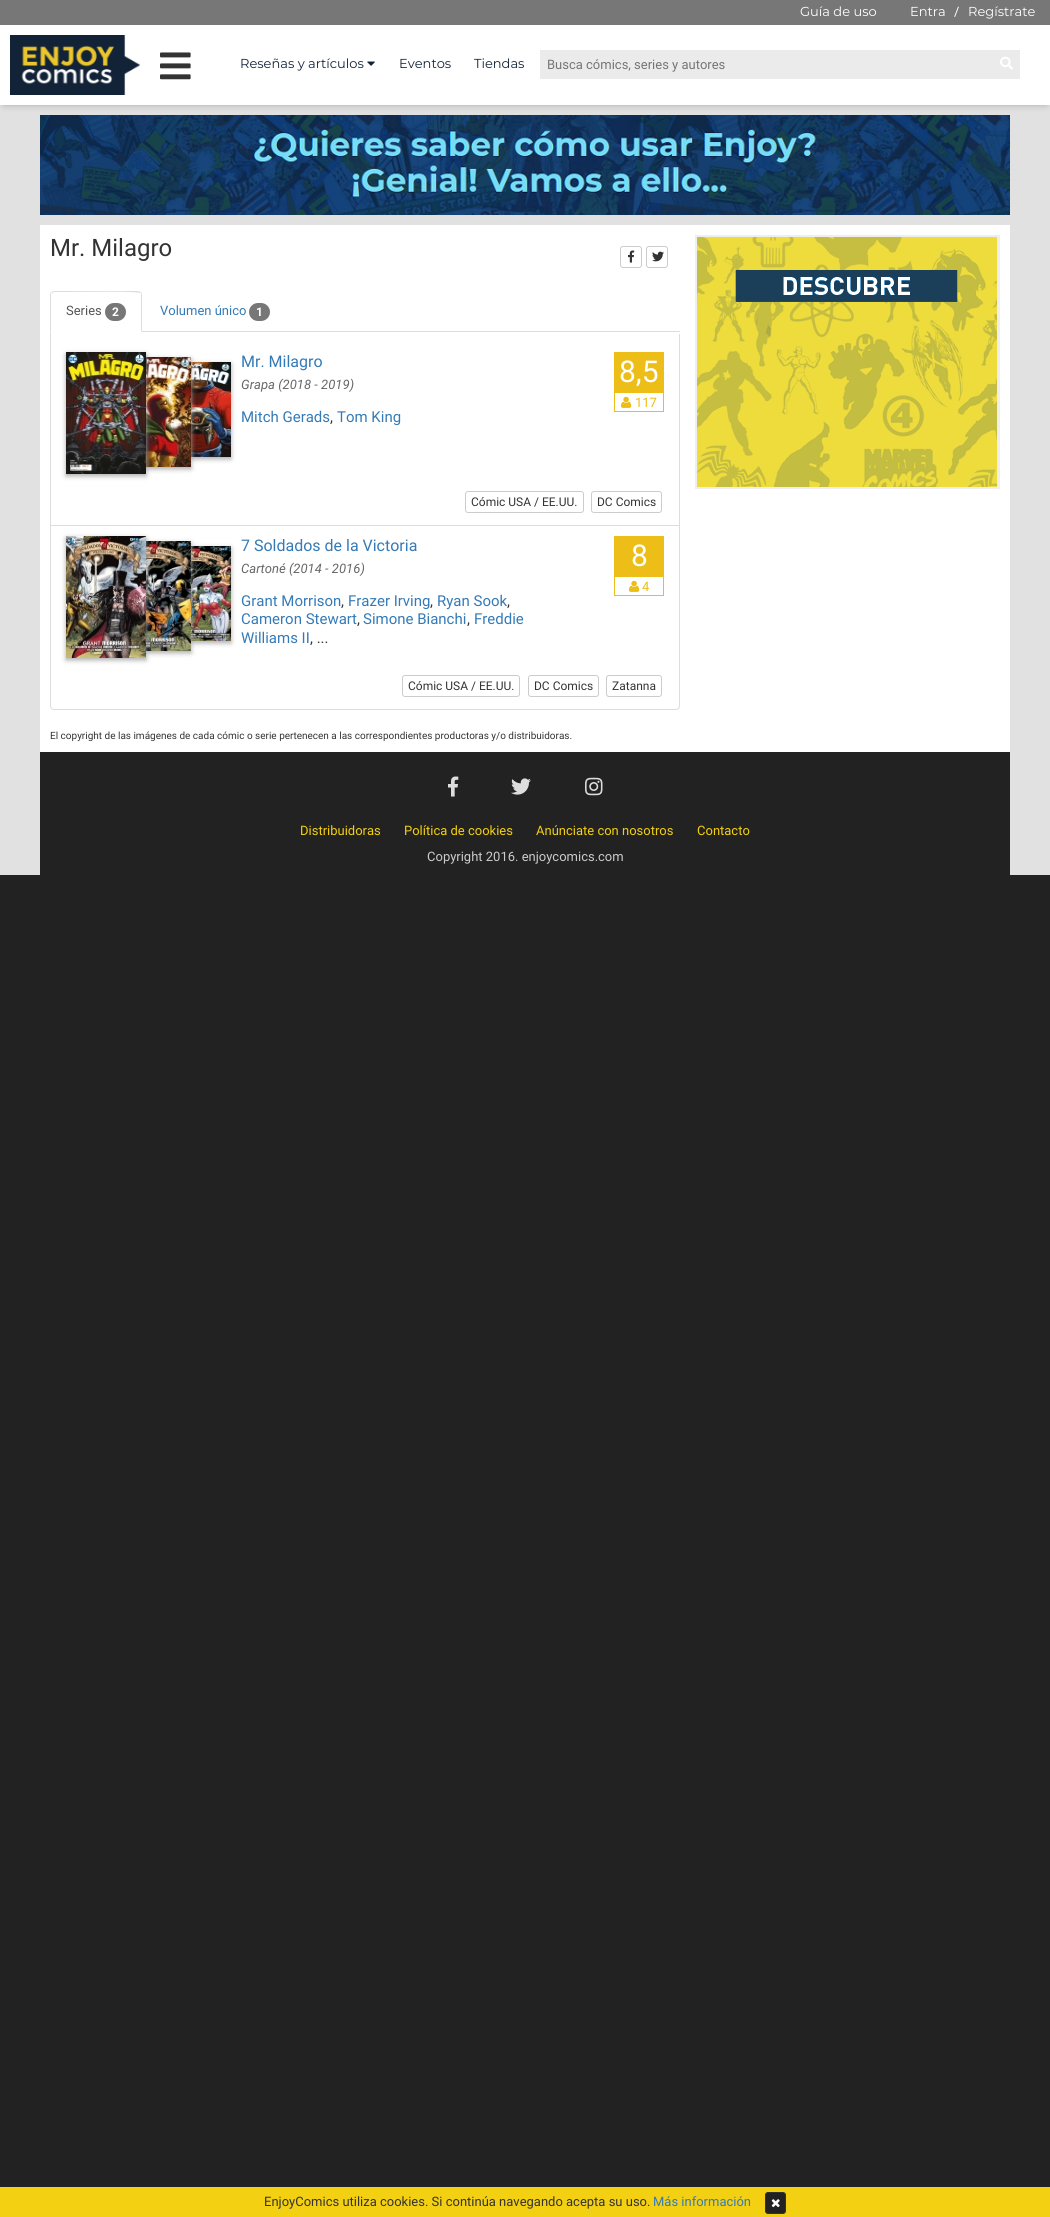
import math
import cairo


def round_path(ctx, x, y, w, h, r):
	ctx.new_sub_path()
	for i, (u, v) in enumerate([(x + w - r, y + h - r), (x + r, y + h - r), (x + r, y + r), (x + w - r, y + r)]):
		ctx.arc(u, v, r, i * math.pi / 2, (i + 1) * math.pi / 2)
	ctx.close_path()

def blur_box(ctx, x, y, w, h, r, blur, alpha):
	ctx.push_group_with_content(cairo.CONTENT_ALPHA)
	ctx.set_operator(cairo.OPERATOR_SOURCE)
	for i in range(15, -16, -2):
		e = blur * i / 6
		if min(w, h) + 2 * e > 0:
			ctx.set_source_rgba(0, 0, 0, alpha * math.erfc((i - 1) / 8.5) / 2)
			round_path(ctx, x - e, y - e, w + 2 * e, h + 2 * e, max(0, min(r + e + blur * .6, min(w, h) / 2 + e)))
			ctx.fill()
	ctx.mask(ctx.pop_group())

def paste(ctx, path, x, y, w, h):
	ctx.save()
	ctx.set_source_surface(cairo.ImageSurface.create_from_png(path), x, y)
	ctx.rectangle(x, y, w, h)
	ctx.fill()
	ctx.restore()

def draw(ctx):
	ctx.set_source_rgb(0.133, 0.133, 0.133)
	ctx.paint()
	ctx.set_source_rgb(0.886, 0.882, 0.882)
	ctx.rectangle(0, 105, 1050, 770)
	ctx.fill()
	paste(ctx, 'media/5.png', 40, 115, 970, 100)
	ctx.set_source_rgb(0, 0, 0)
	blur_box(ctx, 4, 7, 1042, 97, 0, 4, 0.3)
	ctx.set_source_rgb(1, 1, 1)
	ctx.rectangle(0, 25, 1050, 80)
	ctx.fill()
	ctx.set_source_rgb(0.467, 0.467, 0.467)
	ctx.rectangle(0, 0, 1050, 25)
	ctx.fill()
	ctx.select_font_face('Montserrat')
	ctx.set_font_size(13)
	ctx.set_source_rgb(1, 1, 1)
	ctx.move_to(800, 16)
	ctx.show_text('Guía de uso')
	ctx.move_to(910, 16)
	ctx.show_text('Entra')
	ctx.select_font_face('Roboto')
	ctx.move_to(954, 16)
	ctx.show_text('/')
	ctx.select_font_face('Montserrat')
	ctx.move_to(968, 16)
	ctx.show_text('Regístrate')
	paste(ctx, 'media/1.png', 10, 35, 130, 60)
	paste(ctx, 'media/2.png', 160, 52, 31, 28)
	ctx.set_source_rgb(0.071, 0.137, 0.22)
	ctx.move_to(240, 68)
	ctx.show_text('Reseñas y artículos')
	paste(ctx, 'media/3.png', 367, 61, 8, 5)
	ctx.move_to(399, 68)
	ctx.show_text('Eventos')
	ctx.move_to(474, 68)
	ctx.show_text('Tiendas')
	ctx.set_source_rgb(0.918, 0.918, 0.918)
	ctx.rectangle(540, 50, 480, 29)
	ctx.fill()
	ctx.select_font_face('Roboto')
	ctx.set_source_rgb(0.459, 0.459, 0.459)
	ctx.move_to(547, 69)
	ctx.show_text('Busca cómics, series y autores')
	paste(ctx, 'media/4.png', 1000, 56, 13, 14)
	ctx.set_source_rgb(1, 1, 1)
	ctx.rectangle(40, 225, 970, 527)
	ctx.fill()
	ctx.set_font_size(24)
	ctx.set_source_rgb(0.2, 0.2, 0.2)
	ctx.move_to(50, 256)
	ctx.show_text('Mr. Milagro')
	ctx.set_source_rgb(0.867, 0.867, 0.867)
	ctx.rectangle(142, 331, 538, 1)
	ctx.fill()
	ctx.new_path()
	ctx.move_to(54, 291)
	ctx.line_to(51, 292)
	ctx.line_to(52, 293)
	ctx.line_to(54, 292)
	ctx.line_to(68, 292)
	ctx.curve_to(76, 292, 138, 291, 140, 293)
	ctx.line_to(141, 292)
	ctx.line_to(138, 291)
	ctx.close_path()
	ctx.fill()
	ctx.new_path()
	ctx.move_to(142, 332)
	ctx.line_to(142, 295)
	ctx.curve_to(142, 294, 141.5, 293, 141, 292)
	ctx.line_to(140, 293)
	ctx.curve_to(141, 293, 141, 294, 141, 295)
	ctx.line_to(141, 331)
	ctx.close_path()
	ctx.fill()
	ctx.new_path()
	ctx.move_to(50, 332)
	ctx.line_to(51, 331)
	ctx.line_to(51, 295)
	ctx.curve_to(51, 294, 51, 293, 52, 293)
	ctx.line_to(51, 292)
	ctx.curve_to(50.5, 293, 50, 294, 50, 295)
	ctx.close_path()
	ctx.fill()
	ctx.set_font_size(13)
	ctx.set_source_rgb(0.333, 0.333, 0.333)
	ctx.move_to(66, 315)
	ctx.show_text('Series')
	ctx.set_source_rgb(0.467, 0.467, 0.467)
	round_path(ctx, 105, 303, 21, 18, 9)
	ctx.fill()
	ctx.select_font_face('Roboto', cairo.FONT_SLANT_NORMAL, cairo.FONT_WEIGHT_BOLD)
	ctx.set_font_size(12)
	ctx.set_source_rgb(1, 1, 1)
	ctx.move_to(112, 316)
	ctx.show_text('2')
	ctx.select_font_face('Roboto')
	ctx.set_font_size(13)
	ctx.set_source_rgb(0.2, 0.478, 0.718)
	ctx.move_to(160, 315)
	ctx.show_text('Volumen único')
	ctx.set_source_rgb(0.467, 0.467, 0.467)
	round_path(ctx, 249, 303, 21, 18, 9)
	ctx.fill()
	ctx.select_font_face('Roboto', cairo.FONT_SLANT_NORMAL, cairo.FONT_WEIGHT_BOLD)
	ctx.set_font_size(12)
	ctx.set_source_rgb(1, 1, 1)
	ctx.move_to(256, 316)
	ctx.show_text('1')
	ctx.set_source_rgb(0.867, 0.867, 0.867)
	ctx.rectangle(679, 334, 1, 192)
	ctx.fill()
	ctx.rectangle(50, 332, 1, 194)
	ctx.fill()
	ctx.set_source_rgb(0.667, 0.667, 0.667)
	blur_box(ctx, 161, 364, 70, 95, 0, 2.5, 1)
	paste(ctx, 'media/8.png', 191, 362, 40, 95)
	blur_box(ctx, 116, 359, 75, 110, 0, 2.5, 1)
	paste(ctx, 'media/7.png', 146, 357, 45, 110)
	blur_box(ctx, 66, 354, 80, 122, 0, 2.5, 1)
	paste(ctx, 'media/6.png', 66, 352, 80, 122)
	ctx.select_font_face('Roboto')
	ctx.set_font_size(16)
	ctx.set_source_rgb(0.2, 0.478, 0.718)
	ctx.move_to(241, 367)
	ctx.show_text('Mr. Milagro')
	ctx.select_font_face('Roboto', cairo.FONT_SLANT_ITALIC)
	ctx.set_font_size(13)
	ctx.set_source_rgb(0.4, 0.4, 0.4)
	ctx.move_to(241, 389)
	ctx.show_text('Grapa (2018 - 2019)')
	ctx.select_font_face('Roboto')
	ctx.set_font_size(15)
	ctx.set_source_rgb(0.2, 0.478, 0.718)
	ctx.move_to(241, 422)
	ctx.show_text('Mitch Gerads')
	ctx.set_source_rgb(0.2, 0.2, 0.2)
	ctx.move_to(330, 422)
	ctx.show_text(',')
	ctx.set_source_rgb(0.2, 0.478, 0.718)
	ctx.move_to(337, 422)
	ctx.show_text('Tom King')
	ctx.set_source_rgb(0.929, 0.741, 0.094)
	ctx.rectangle(614, 352, 50, 40)
	ctx.fill()
	ctx.set_font_size(30)
	ctx.set_source_rgb(1, 1, 1)
	ctx.move_to(619, 382)
	ctx.show_text('8,5')
	ctx.rectangle(614.5, 392.5, 49, 19)
	ctx.set_source_rgb(0.929, 0.741, 0.094)
	ctx.set_line_width(1)
	ctx.stroke()
	paste(ctx, 'media/9.png', 621, 396, 11, 12)
	ctx.set_font_size(13)
	ctx.move_to(635, 407)
	ctx.show_text('117')
	round_path(ctx, 465.5, 491.5, 118, 21, 2.5)
	ctx.set_source_rgb(0.8, 0.8, 0.8)
	ctx.stroke()
	ctx.set_font_size(12)
	ctx.set_source_rgb(0.2, 0.2, 0.2)
	ctx.move_to(471, 506)
	ctx.show_text('Cómic USA / EE.UU.')
	round_path(ctx, 591.5, 491.5, 70, 21, 2.5)
	ctx.set_source_rgb(0.8, 0.8, 0.8)
	ctx.stroke()
	ctx.set_source_rgb(0.2, 0.2, 0.2)
	ctx.move_to(597, 506)
	ctx.show_text('DC Comics')
	ctx.set_source_rgb(1, 1, 1)
	ctx.new_path()
	ctx.move_to(50.5, 525.5)
	ctx.line_to(679.5, 525.5)
	ctx.line_to(679.5, 706)
	ctx.curve_to(679.5, 708, 678, 709.5, 676, 709.5)
	ctx.line_to(54, 709.5)
	ctx.curve_to(52, 709.5, 50.5, 708, 50.5, 706)
	ctx.close_path()
	ctx.fill_preserve()
	ctx.set_source_rgb(0.867, 0.867, 0.867)
	ctx.stroke()
	ctx.set_source_rgb(0.667, 0.667, 0.667)
	blur_box(ctx, 161, 548, 70, 95, 0, 2.5, 1)
	paste(ctx, 'media/12.png', 191, 546, 40, 95)
	blur_box(ctx, 116, 543, 75, 110, 0, 2.5, 1)
	paste(ctx, 'media/11.png', 146, 541, 45, 110)
	blur_box(ctx, 66, 538, 80, 122, 0, 2.5, 1)
	paste(ctx, 'media/10.png', 66, 536, 80, 122)
	ctx.set_font_size(16)
	ctx.set_source_rgb(0.2, 0.478, 0.718)
	ctx.move_to(241, 551)
	ctx.show_text('7 Soldados de la Victoria')
	ctx.select_font_face('Roboto', cairo.FONT_SLANT_ITALIC)
	ctx.set_font_size(13)
	ctx.set_source_rgb(0.4, 0.4, 0.4)
	ctx.move_to(241, 573)
	ctx.show_text('Cartoné (2014 - 2016)')
	ctx.select_font_face('Roboto')
	ctx.set_font_size(15)
	ctx.set_source_rgb(0.2, 0.478, 0.718)
	ctx.move_to(241, 606)
	ctx.show_text('Grant Morrison')
	ctx.set_source_rgb(0.2, 0.2, 0.2)
	ctx.move_to(341, 606)
	ctx.show_text(',')
	ctx.set_source_rgb(0.2, 0.478, 0.718)
	ctx.move_to(348, 606)
	ctx.show_text('Frazer Irving')
	ctx.set_source_rgb(0.2, 0.2, 0.2)
	ctx.move_to(430, 606)
	ctx.show_text(',')
	ctx.set_source_rgb(0.2, 0.478, 0.718)
	ctx.move_to(437, 606)
	ctx.show_text('Ryan Sook')
	ctx.set_source_rgb(0.2, 0.2, 0.2)
	ctx.move_to(507, 606)
	ctx.show_text(',')
	ctx.set_source_rgb(0.2, 0.478, 0.718)
	ctx.move_to(241, 624)
	ctx.show_text('Cameron Stewart')
	ctx.set_source_rgb(0.2, 0.2, 0.2)
	ctx.move_to(357, 624)
	ctx.show_text(',')
	ctx.set_source_rgb(0.2, 0.478, 0.718)
	ctx.move_to(363, 624)
	ctx.show_text('Simone Bianchi')
	ctx.set_source_rgb(0.2, 0.2, 0.2)
	ctx.move_to(467, 624)
	ctx.show_text(',')
	ctx.set_source_rgb(0.2, 0.478, 0.718)
	ctx.move_to(474, 624)
	ctx.show_text('Freddie')
	ctx.move_to(241, 643)
	ctx.show_text('Williams II')
	ctx.set_source_rgb(0.2, 0.2, 0.2)
	ctx.move_to(310, 643)
	ctx.show_text(', ...')
	ctx.set_source_rgb(0.929, 0.741, 0.094)
	ctx.rectangle(614, 536, 50, 40)
	ctx.fill()
	ctx.set_font_size(30)
	ctx.set_source_rgb(1, 1, 1)
	ctx.move_to(631, 566)
	ctx.show_text('8')
	ctx.rectangle(614.5, 576.5, 49, 19)
	ctx.set_source_rgb(0.929, 0.741, 0.094)
	ctx.stroke()
	paste(ctx, 'media/9.png', 629, 580, 11, 12)
	ctx.set_font_size(13)
	ctx.move_to(642, 591)
	ctx.show_text('4')
	round_path(ctx, 402.5, 675.5, 117, 21, 2.5)
	ctx.set_source_rgb(0.8, 0.8, 0.8)
	ctx.stroke()
	ctx.set_font_size(12)
	ctx.set_source_rgb(0.2, 0.2, 0.2)
	ctx.move_to(408, 690)
	ctx.show_text('Cómic USA / EE.UU.')
	round_path(ctx, 528.5, 675.5, 70, 21, 2.5)
	ctx.set_source_rgb(0.8, 0.8, 0.8)
	ctx.stroke()
	ctx.set_source_rgb(0.2, 0.2, 0.2)
	ctx.move_to(534, 690)
	ctx.show_text('DC Comics')
	round_path(ctx, 606.5, 675.5, 55, 21, 2.5)
	ctx.set_source_rgb(0.8, 0.8, 0.8)
	ctx.stroke()
	ctx.set_source_rgb(0.2, 0.2, 0.2)
	ctx.move_to(612, 690)
	ctx.show_text('Zatanna')
	round_path(ctx, 620.5, 246.5, 21, 21, 2.5)
	ctx.set_source_rgb(0.8, 0.8, 0.8)
	ctx.stroke()
	paste(ctx, 'media/13.png', 628, 250, 7, 13)
	round_path(ctx, 646.5, 246.5, 21, 21, 2.5)
	ctx.stroke()
	paste(ctx, 'media/14.png', 652, 251, 12, 11)
	ctx.set_font_size(10)
	ctx.set_source_rgb(0.2, 0.2, 0.2)
	ctx.move_to(50, 739)
	ctx.show_text('El copyright de las imágenes de cada cómic o serie pertenecen a las correspondientes productoras y/o distribuidoras.')
	ctx.set_source_rgb(0.933, 0.933, 0.933)
	ctx.rectangle(695, 235, 305, 254)
	ctx.fill()
	paste(ctx, 'media/15.png', 697, 237, 300, 250)
	ctx.set_source_rgb(0.133, 0.133, 0.133)
	ctx.rectangle(40, 752, 970, 123)
	ctx.fill()
	paste(ctx, 'media/16.png', 448, 776, 11, 21)
	paste(ctx, 'media/17.png', 511, 778, 20, 17)
	paste(ctx, 'media/18.png', 585, 777, 18, 19)
	ctx.set_font_size(13)
	ctx.set_source_rgb(0.953, 0.816, 0.071)
	for x, y, s in [
		(300, 835, 'Distribuidoras'),
		(404, 835, 'Política de cookies'),
		(536, 835, 'Anúnciate con nosotros'),
		(697, 835, 'Contacto'),
	]:
		ctx.move_to(x, y)
		ctx.show_text(s)
	ctx.set_source_rgb(0.8, 0.8, 0.8)
	ctx.move_to(427, 861)
	ctx.show_text('Copyright 2016. enjoycomics.com')
	ctx.set_source_rgb(0.953, 0.816, 0.071)
	ctx.rectangle(0, 2187, 1050, 30)
	ctx.fill()
	ctx.set_source_rgb(0.2, 0.2, 0.2)
	ctx.move_to(264, 2206)
	ctx.show_text('EnjoyComics utiliza cookies. Si continúa navegando acepta su uso.')
	ctx.set_source_rgb(0.2, 0.478, 0.718)
	ctx.move_to(653, 2206)
	ctx.show_text('Más información')
	ctx.set_source_rgb(0.133, 0.133, 0.133)
	round_path(ctx, 765.5, 2192.5, 20, 21, 2.5)
	ctx.fill_preserve()
	ctx.set_source_rgb(0.2, 0.2, 0.2)
	ctx.stroke()
	paste(ctx, 'media/19.png', 771, 2199, 9, 9)


surface = cairo.ImageSurface(cairo.FORMAT_RGB24, 1050, 2217)
ctx = cairo.Context(surface)
options = cairo.FontOptions()
options.set_hint_metrics(cairo.HINT_METRICS_OFF)
options.set_hint_style(cairo.HINT_STYLE_NONE)
ctx.set_font_options(options)
ctx.set_miter_limit(4)
draw(ctx)
surface.write_to_png('image.png')
